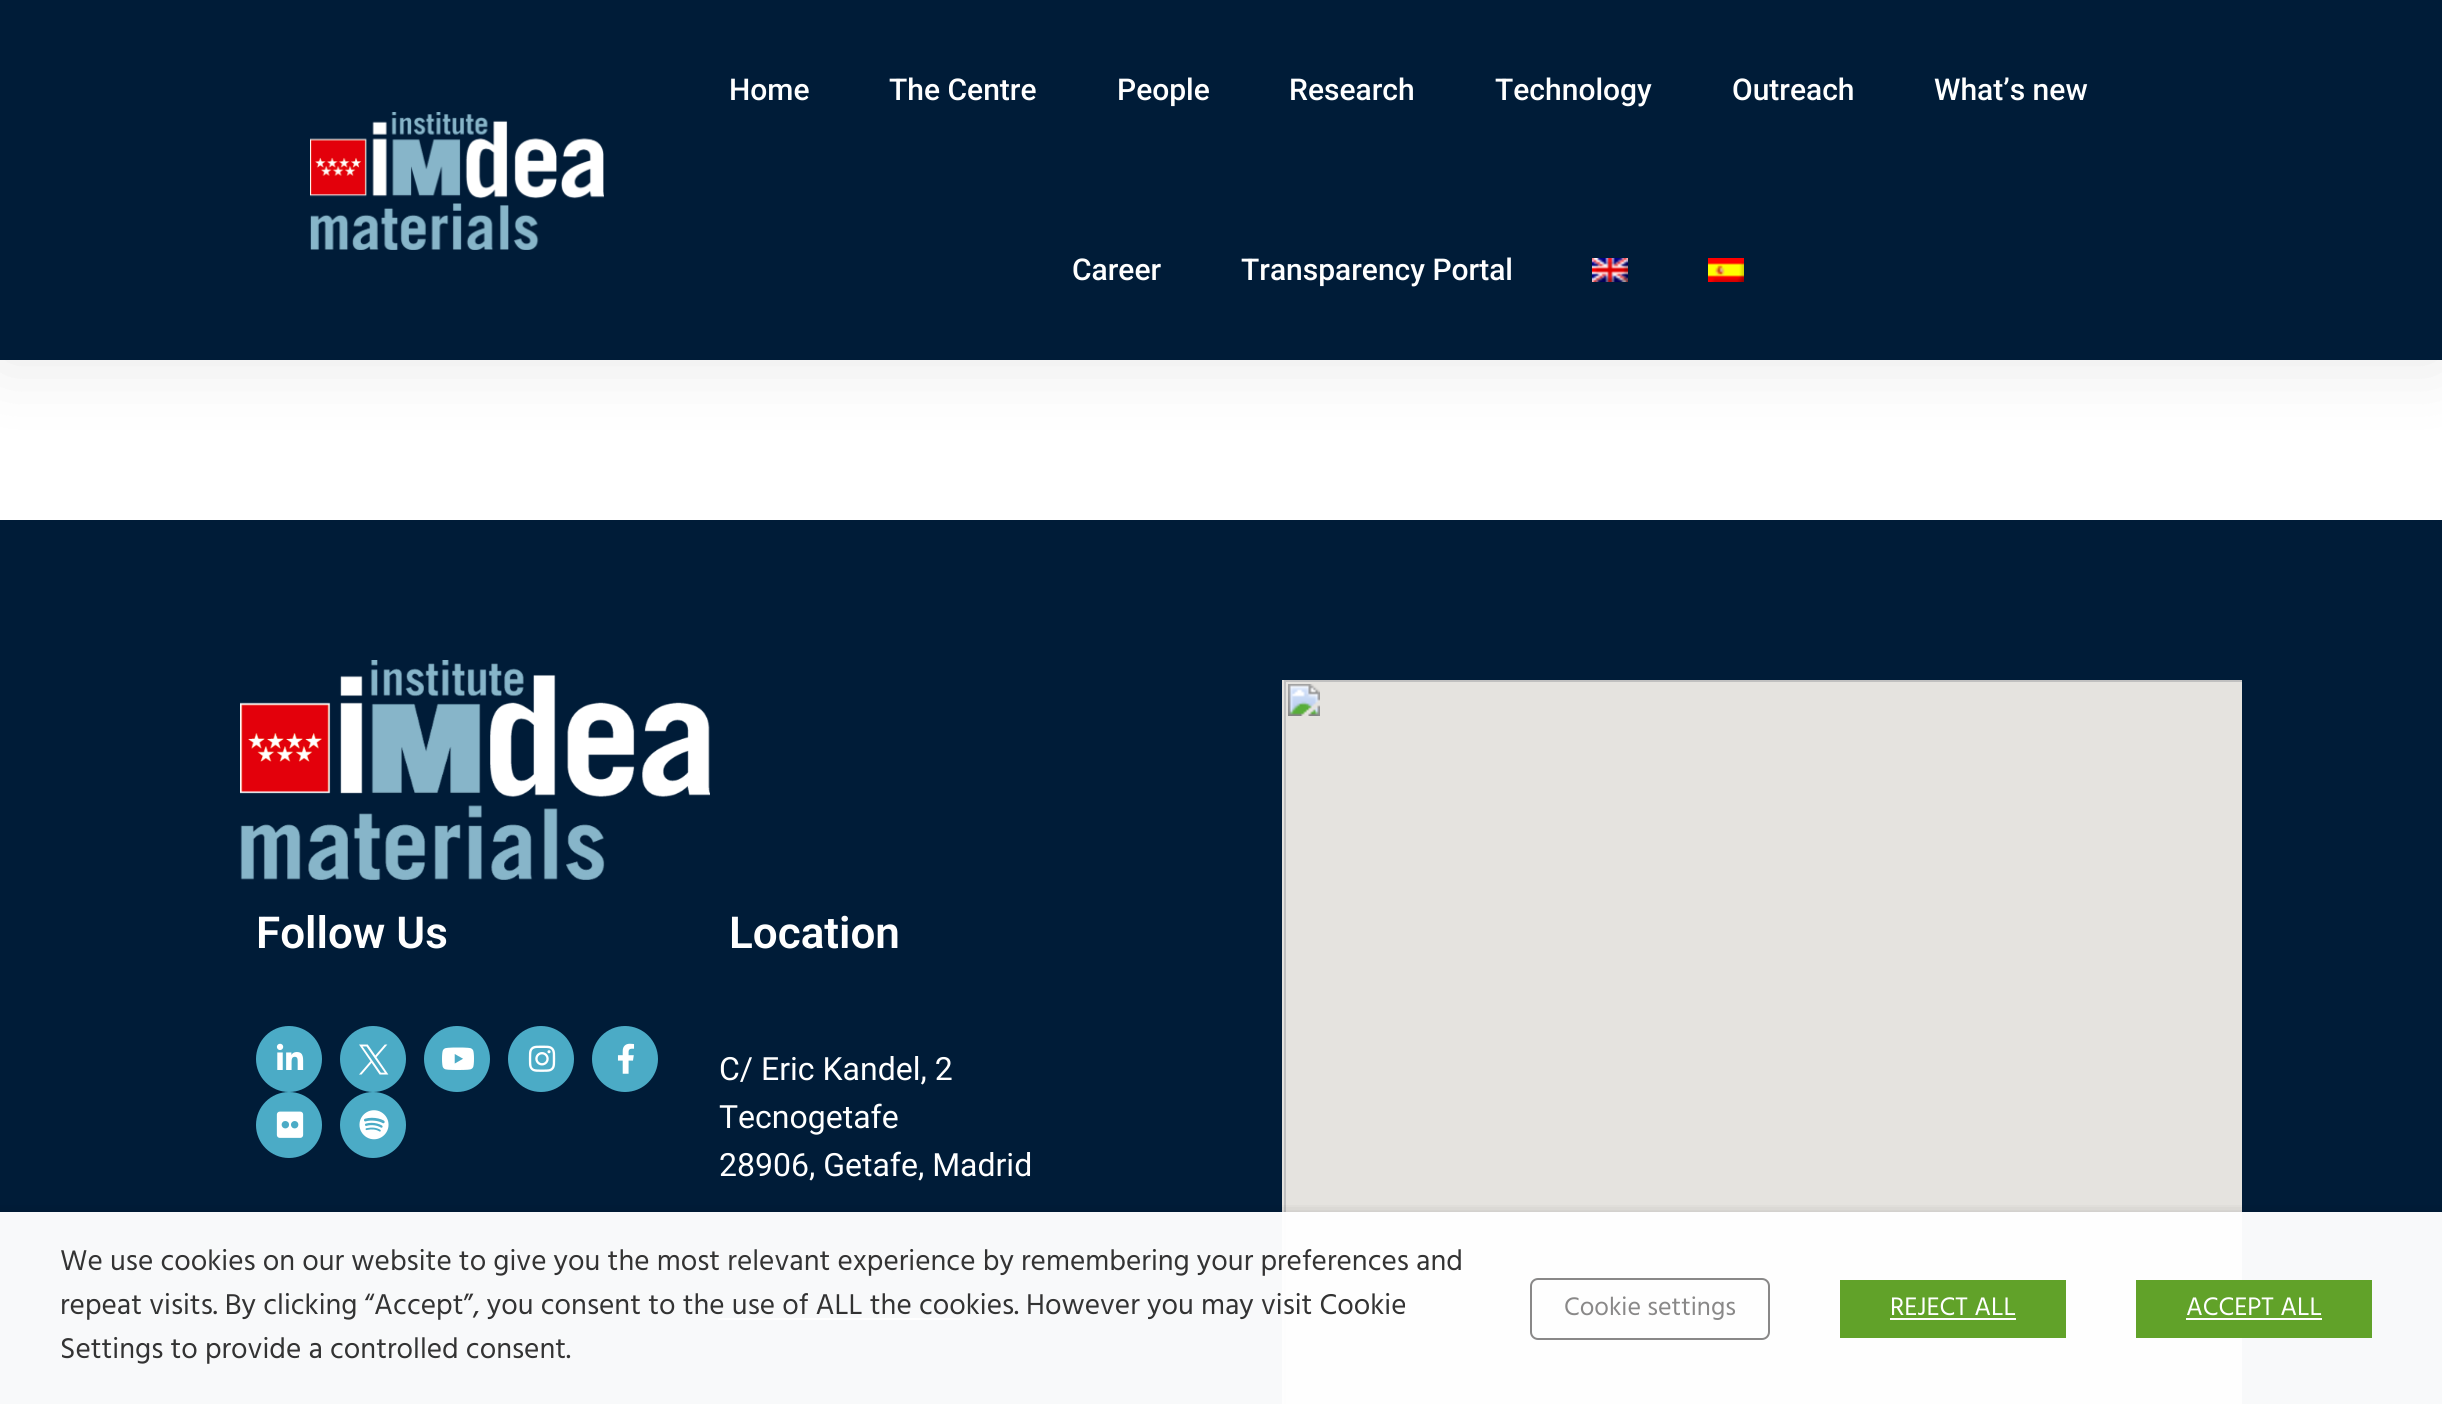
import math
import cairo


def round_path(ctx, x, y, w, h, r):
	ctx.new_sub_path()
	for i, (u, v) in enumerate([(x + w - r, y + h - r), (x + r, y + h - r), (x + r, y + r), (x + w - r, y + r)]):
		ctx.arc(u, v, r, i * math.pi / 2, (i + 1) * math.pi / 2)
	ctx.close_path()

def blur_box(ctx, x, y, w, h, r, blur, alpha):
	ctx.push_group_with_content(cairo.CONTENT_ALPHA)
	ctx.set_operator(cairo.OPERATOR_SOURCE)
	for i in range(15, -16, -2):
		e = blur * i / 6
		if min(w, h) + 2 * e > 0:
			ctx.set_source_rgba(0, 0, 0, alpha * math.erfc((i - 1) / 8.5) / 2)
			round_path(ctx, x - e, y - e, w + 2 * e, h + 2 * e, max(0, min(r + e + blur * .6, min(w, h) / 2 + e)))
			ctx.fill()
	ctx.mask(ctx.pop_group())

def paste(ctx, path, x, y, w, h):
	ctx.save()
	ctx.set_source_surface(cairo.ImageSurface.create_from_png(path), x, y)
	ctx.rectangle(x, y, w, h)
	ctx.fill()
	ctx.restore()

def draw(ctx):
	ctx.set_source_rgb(1, 1, 1)
	ctx.paint()
	ctx.set_source_rgb(0, 0, 0)
	blur_box(ctx, 0, 0, 2442, 360, 0, 38, 0.1)
	ctx.set_source_rgb(0, 0.11, 0.22)
	ctx.rectangle(0, 0, 2442, 360)
	ctx.fill()
	paste(ctx, 'media/1.png', 310, 112, 294, 138)
	ctx.select_font_face('Roboto Medium')
	ctx.set_font_size(30)
	ctx.set_source_rgb(1, 1, 1)
	for x, y, s in [
		(729, 100, 'Home'),
		(889, 100, 'The Centre'),
		(1117, 100, 'People'),
		(1289, 100, 'Research'),
		(1495, 100, 'Technology'),
		(1732, 100, 'Outreach'),
		(1934, 100, 'What’s new'),
		(1072, 280, 'Career'),
		(1241, 280, 'Transparency Portal'),
	]:
		ctx.move_to(x, y)
		ctx.show_text(s)
	paste(ctx, 'media/2.png', 1592, 258, 36, 24)
	paste(ctx, 'media/3.png', 1708, 258, 36, 24)
	ctx.set_source_rgb(0, 0.11, 0.22)
	ctx.rectangle(0, 520, 2442, 884)
	ctx.fill()
	paste(ctx, 'media/4.png', 240, 660, 470, 220)
	ctx.select_font_face('Roboto SemiBold')
	ctx.set_font_size(44)
	ctx.set_source_rgb(1, 1, 1)
	ctx.move_to(256, 948)
	ctx.show_text('Follow Us')
	ctx.set_source_rgb(0.294, 0.671, 0.776)
	ctx.new_path()
	ctx.arc(289, 1059, 33, 0, 2 * math.pi)
	ctx.fill()
	paste(ctx, 'media/5.png', 276, 1043, 28, 27)
	ctx.arc(373, 1059, 33, 0, 2 * math.pi)
	ctx.fill()
	paste(ctx, 'media/6.png', 359, 1044, 30, 31)
	ctx.arc(457, 1059, 33, 0, 2 * math.pi)
	ctx.fill()
	paste(ctx, 'media/7.png', 442, 1047, 32, 23)
	ctx.arc(541, 1059, 33, 0, 2 * math.pi)
	ctx.fill()
	paste(ctx, 'media/8.png', 528, 1045, 28, 27)
	ctx.arc(625, 1059, 33, 0, 2 * math.pi)
	ctx.fill()
	paste(ctx, 'media/9.png', 617, 1043, 18, 31)
	ctx.arc(289, 1125, 33, 0, 2 * math.pi)
	ctx.fill()
	paste(ctx, 'media/10.png', 276, 1111, 28, 27)
	ctx.arc(373, 1125, 33, 0, 2 * math.pi)
	ctx.fill()
	paste(ctx, 'media/11.png', 359, 1110, 30, 30)
	ctx.set_source_rgb(1, 1, 1)
	ctx.move_to(729, 948)
	ctx.show_text('Location')
	ctx.select_font_face('Roboto')
	ctx.set_font_size(32)
	for x, y, s in [
		(719, 1080, 'C/ Eric Kandel, 2'),
		(719, 1128, 'Tecnogetafe'),
		(719, 1176, '28906, Getafe, Madrid'),
	]:
		ctx.move_to(x, y)
		ctx.show_text(s)
	ctx.rectangle(718, 1318, 242, 2)
	ctx.fill()
	paste(ctx, 'media/12.png', 1282, 680, 960, 724)
	ctx.save()
	ctx.rectangle(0, 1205, 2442, 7)
	ctx.clip()
	ctx.set_source_rgb(0, 0, 0)
	blur_box(ctx, 0, 1222, 2442, 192, 0, 10, 0.5)
	ctx.restore()
	ctx.set_source_rgba(1, 1, 1, 0.97)
	ctx.rectangle(0, 1212, 2442, 192)
	ctx.fill()
	ctx.select_font_face('Hind')
	ctx.set_font_size(29.35)
	ctx.set_source_rgb(0.2, 0.2, 0.2)
	for x, y, s in [
		(60, 1270, 'We use cookies on our website to give you the most relevant experience by remembering your preferences and'),
		(60, 1314, 'repeat visits. By clicking “Accept”, you consent to the use of ALL the cookies. However you may visit Cookie'),
		(60, 1358, 'Settings to provide a controlled consent.'),
	]:
		ctx.move_to(x, y)
		ctx.show_text(s)
	round_path(ctx, 1531, 1279, 238, 60, 7)
	ctx.set_source_rgb(0.537, 0.533, 0.533)
	ctx.stroke()
	ctx.set_font_size(26)
	ctx.move_to(1564, 1315)
	ctx.show_text('Cookie settings')
	ctx.set_source_rgb(0.38, 0.635, 0.161)
	ctx.rectangle(1840, 1280, 226, 58)
	ctx.fill()
	ctx.set_source_rgb(1, 1, 1)
	ctx.move_to(1890, 1315)
	ctx.show_text('REJECT ALL')
	ctx.rectangle(1890, 1318, 126, 2)
	ctx.fill()
	ctx.set_source_rgb(0.38, 0.635, 0.161)
	ctx.rectangle(2136, 1280, 236, 58)
	ctx.fill()
	ctx.set_source_rgb(1, 1, 1)
	ctx.move_to(2186, 1315)
	ctx.show_text('ACCEPT ALL')
	ctx.rectangle(2186, 1318, 136, 2)
	ctx.fill()


surface = cairo.ImageSurface(cairo.FORMAT_RGB24, 2442, 1404)
ctx = cairo.Context(surface)
options = cairo.FontOptions()
options.set_hint_metrics(cairo.HINT_METRICS_OFF)
options.set_hint_style(cairo.HINT_STYLE_NONE)
ctx.set_font_options(options)
ctx.set_miter_limit(4)
draw(ctx)
surface.write_to_png('image.png')
